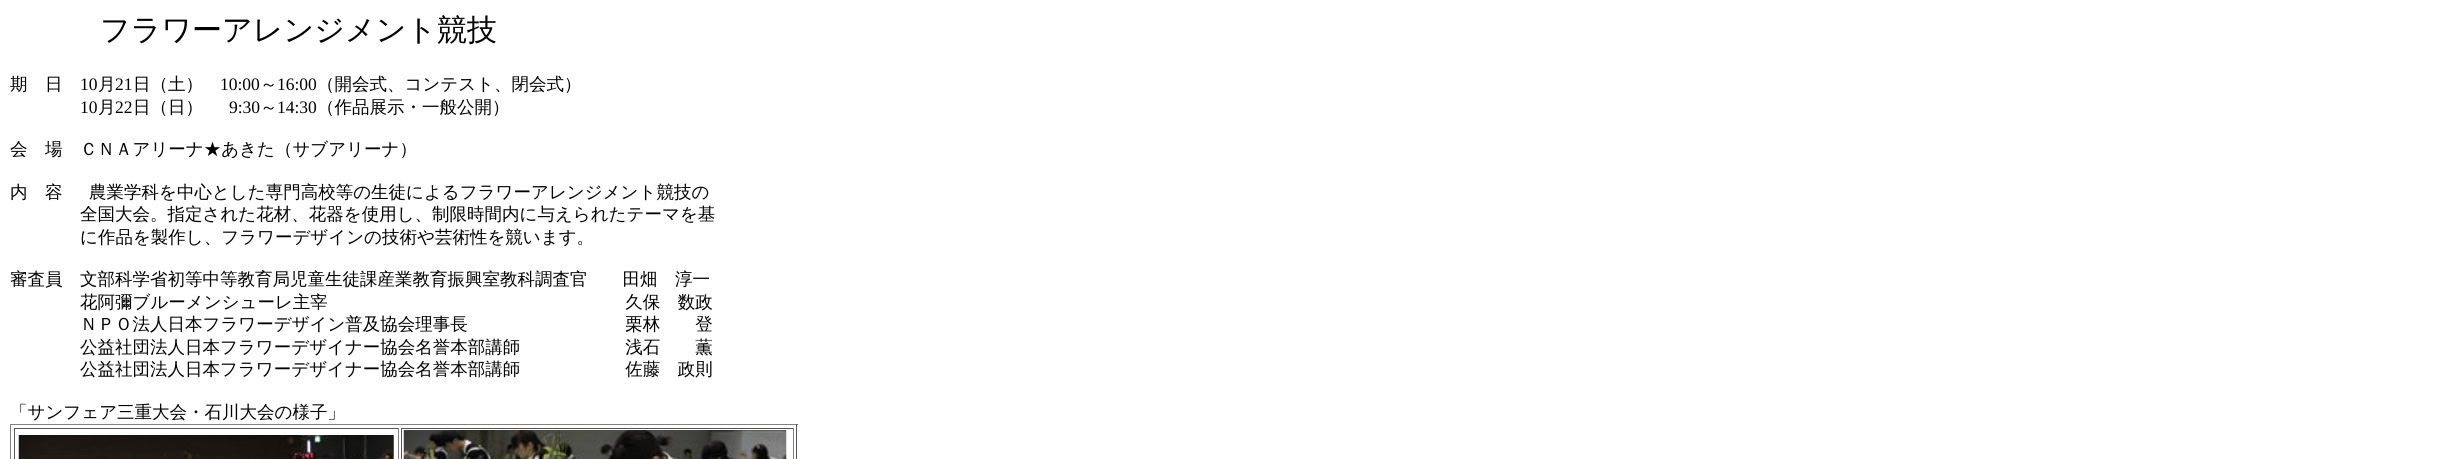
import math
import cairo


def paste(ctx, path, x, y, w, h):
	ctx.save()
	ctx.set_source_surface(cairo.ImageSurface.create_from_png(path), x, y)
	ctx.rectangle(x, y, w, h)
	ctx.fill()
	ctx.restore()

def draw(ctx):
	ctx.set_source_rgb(1, 1, 1)
	ctx.paint()
	ctx.select_font_face('WenQuanYi Zen Hei Medium')
	ctx.set_font_size(30)
	ctx.set_source_rgb(0, 0, 0)
	ctx.move_to(100, 40)
	ctx.show_text('フラワーアレンジメント競技')
	ctx.set_font_size(17.5)
	ctx.move_to(10, 90)
	ctx.show_text('期　日')
	ctx.select_font_face('Liberation Serif')
	ctx.move_to(80, 90)
	ctx.show_text('10')
	ctx.select_font_face('WenQuanYi Zen Hei Medium')
	ctx.move_to(98, 90)
	ctx.show_text('月')
	ctx.select_font_face('Liberation Serif')
	ctx.move_to(115, 90)
	ctx.show_text('21')
	ctx.select_font_face('WenQuanYi Zen Hei Medium')
	ctx.move_to(133, 90)
	ctx.show_text('日（土）')
	ctx.select_font_face('Liberation Serif')
	ctx.move_to(220, 90)
	ctx.show_text('10:00')
	ctx.select_font_face('WenQuanYi Zen Hei Medium')
	ctx.move_to(260, 90)
	ctx.show_text('～')
	ctx.select_font_face('Liberation Serif')
	ctx.move_to(277, 90)
	ctx.show_text('16:00')
	ctx.select_font_face('WenQuanYi Zen Hei Medium')
	ctx.move_to(317, 90)
	ctx.show_text('（開会式、コンテスト、閉会式）')
	ctx.select_font_face('Liberation Serif')
	ctx.move_to(80, 113)
	ctx.show_text('10')
	ctx.select_font_face('WenQuanYi Zen Hei Medium')
	ctx.move_to(98, 113)
	ctx.show_text('月')
	ctx.select_font_face('Liberation Serif')
	ctx.move_to(115, 113)
	ctx.show_text('22')
	ctx.select_font_face('WenQuanYi Zen Hei Medium')
	ctx.move_to(133, 113)
	ctx.show_text('日（日）')
	ctx.select_font_face('Liberation Serif')
	ctx.move_to(229, 113)
	ctx.show_text('9:30')
	ctx.select_font_face('WenQuanYi Zen Hei Medium')
	ctx.move_to(260, 113)
	ctx.show_text('～')
	ctx.select_font_face('Liberation Serif')
	ctx.move_to(277, 113)
	ctx.show_text('14:30')
	ctx.select_font_face('WenQuanYi Zen Hei Medium')
	for x, y, s in [
		(317, 113, '（作品展示・一般公開）'),
		(10, 155, '会　場　ＣＮＡアリーナ★あきた（サブアリーナ）'),
		(10, 198, '内　容'),
		(89, 198, '農業学科を中心とした専門高校等の生徒によるフラワーアレンジメント競技の'),
		(80, 220, '全国大会。指定された花材、花器を使用し、制限時間内に与えられたテーマを基'),
		(80, 243, 'に作品を製作し、フラワーデザインの技術や芸術性を競います。'),
		(10, 285, '審査員　文部科学省初等中等教育局児童生徒課産業教育振興室教科調査官　　田畑　淳一'),
		(80, 308, '花阿彌ブルーメンシューレ主宰　　　　　　　　　　　　　　　　　久保　数政'),
		(80, 330, 'ＮＰＯ法人日本フラワーデザイン普及協会理事長　　　　　　　　　栗林　　登'),
		(80, 353, '公益社団法人日本フラワーデザイナー協会名誉本部講師　　　　　　浅石　　薫'),
		(80, 375, '公益社団法人日本フラワーデザイナー協会名誉本部講師　　　　　　佐藤　政則'),
		(10, 418, '「サンフェア三重大会・石川大会の様子」'),
	]:
		ctx.move_to(x, y)
		ctx.show_text(s)
	ctx.set_source_rgb(0.502, 0.502, 0.502)
	ctx.rectangle(10, 424, 788, 1)
	ctx.fill()
	ctx.set_source_rgb(0.333, 0.333, 0.333)
	ctx.rectangle(796, 424, 1, 35)
	ctx.fill()
	ctx.set_source_rgb(0.502, 0.502, 0.502)
	ctx.rectangle(10, 424, 1, 35)
	ctx.fill()
	ctx.set_source_rgb(0.333, 0.333, 0.333)
	ctx.rectangle(14, 428, 385, 1)
	ctx.fill()
	ctx.set_source_rgb(0.502, 0.502, 0.502)
	ctx.rectangle(398, 428, 1, 31)
	ctx.fill()
	ctx.set_source_rgb(0.333, 0.333, 0.333)
	ctx.rectangle(14, 428, 1, 31)
	ctx.fill()
	paste(ctx, 'media/1.png', 18, 435, 376, 24)
	ctx.rectangle(401, 428, 393, 1)
	ctx.fill()
	ctx.set_source_rgb(0.502, 0.502, 0.502)
	ctx.rectangle(793, 428, 1, 31)
	ctx.fill()
	ctx.set_source_rgb(0.333, 0.333, 0.333)
	ctx.rectangle(401, 428, 1, 31)
	ctx.fill()
	paste(ctx, 'media/2.png', 403, 430, 384, 29)


surface = cairo.ImageSurface(cairo.FORMAT_RGB24, 2455, 459)
ctx = cairo.Context(surface)
options = cairo.FontOptions()
options.set_hint_metrics(cairo.HINT_METRICS_OFF)
options.set_hint_style(cairo.HINT_STYLE_NONE)
ctx.set_font_options(options)
ctx.set_miter_limit(4)
draw(ctx)
surface.write_to_png('image.png')
